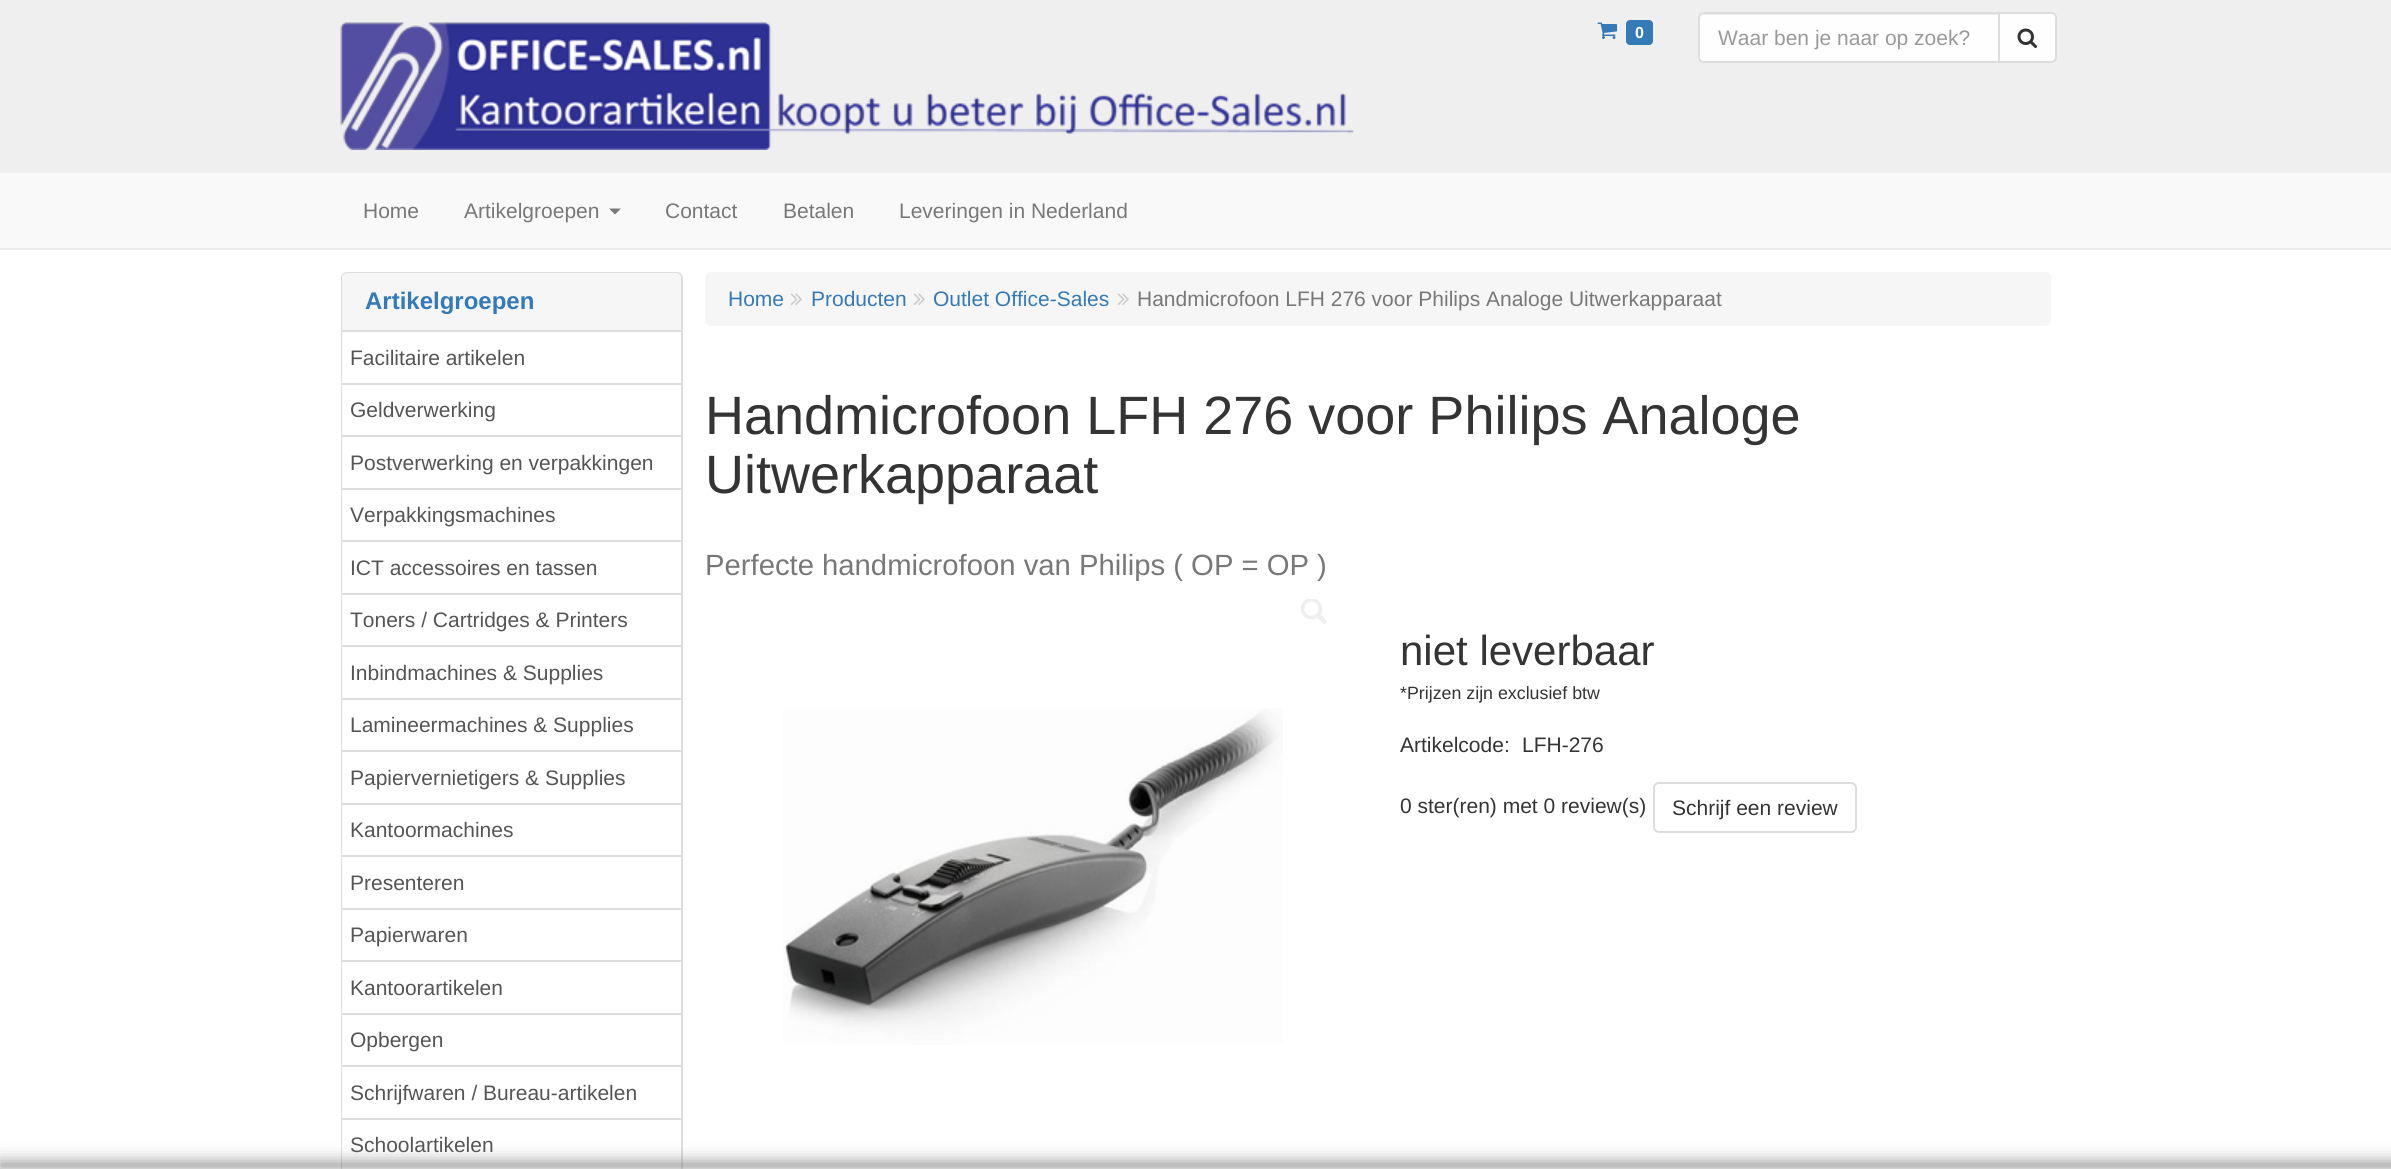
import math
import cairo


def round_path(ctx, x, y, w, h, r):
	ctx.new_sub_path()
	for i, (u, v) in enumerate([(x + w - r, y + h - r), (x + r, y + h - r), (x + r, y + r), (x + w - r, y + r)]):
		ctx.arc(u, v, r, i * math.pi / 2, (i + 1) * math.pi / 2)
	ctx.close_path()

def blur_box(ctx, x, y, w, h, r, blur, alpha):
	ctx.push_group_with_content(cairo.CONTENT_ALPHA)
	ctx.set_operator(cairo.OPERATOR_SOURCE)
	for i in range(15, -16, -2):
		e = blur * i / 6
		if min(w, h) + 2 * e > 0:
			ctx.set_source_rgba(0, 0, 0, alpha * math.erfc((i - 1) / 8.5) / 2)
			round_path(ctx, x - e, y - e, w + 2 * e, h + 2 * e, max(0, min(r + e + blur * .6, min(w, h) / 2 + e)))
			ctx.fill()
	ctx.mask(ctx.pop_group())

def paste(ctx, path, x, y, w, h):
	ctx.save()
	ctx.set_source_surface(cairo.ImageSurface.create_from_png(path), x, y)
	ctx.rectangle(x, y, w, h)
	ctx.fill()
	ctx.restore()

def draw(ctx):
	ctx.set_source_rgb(1, 1, 1)
	ctx.paint()
	ctx.set_source_rgb(0.937, 0.937, 0.937)
	ctx.rectangle(0, 0, 2391, 173)
	ctx.fill()
	paste(ctx, 'media/1.png', 340, 22, 1014, 128)
	paste(ctx, 'media/2.png', 1597, 22, 20, 17)
	ctx.set_source_rgb(0.2, 0.478, 0.718)
	round_path(ctx, 1626, 20, 27, 25, 4)
	ctx.fill()
	ctx.select_font_face('Liberation Sans', cairo.FONT_SLANT_NORMAL, cairo.FONT_WEIGHT_BOLD)
	ctx.set_font_size(16)
	ctx.set_source_rgb(1, 1, 1)
	ctx.move_to(1635, 38)
	ctx.show_text('0')
	ctx.set_source_rgb(0.996, 0.996, 0.996)
	ctx.new_path()
	ctx.move_to(1704, 12)
	ctx.line_to(2000, 12)
	ctx.line_to(2000, 63)
	ctx.line_to(1704, 63)
	ctx.curve_to(1700.5, 63, 1698, 60.5, 1698, 57)
	ctx.line_to(1698, 18)
	ctx.curve_to(1698, 14.5, 1700.5, 12, 1704, 12)
	ctx.close_path()
	ctx.fill()
	ctx.set_source_rgb(0.922, 0.922, 0.922)
	ctx.new_path()
	ctx.move_to(1704, 15)
	ctx.line_to(1998, 15)
	ctx.line_to(1998, 14)
	ctx.line_to(1705, 14)
	ctx.curve_to(1702, 14, 1700, 16, 1700, 19)
	ctx.line_to(1700, 20)
	ctx.curve_to(1700, 17, 1702, 15, 1704, 15)
	ctx.close_path()
	ctx.fill()
	ctx.new_path()
	ctx.move_to(1704, 13)
	ctx.line_to(1999, 13)
	ctx.line_to(1999, 62)
	ctx.line_to(1704, 62)
	ctx.curve_to(1701, 62, 1699, 60, 1699, 57)
	ctx.line_to(1699, 18)
	ctx.curve_to(1699, 15, 1701, 13, 1704, 13)
	ctx.close_path()
	ctx.set_source_rgb(0.867, 0.867, 0.867)
	ctx.stroke()
	ctx.select_font_face('Liberation Sans')
	ctx.set_font_size(21)
	ctx.set_source_rgb(0.6, 0.6, 0.6)
	ctx.move_to(1718, 45)
	ctx.show_text('Waar ben je naar op zoek?')
	ctx.set_source_rgb(0.996, 0.996, 0.996)
	ctx.new_path()
	ctx.move_to(1999, 13)
	ctx.line_to(2051, 13)
	ctx.curve_to(2054, 13, 2056, 15, 2056, 18)
	ctx.line_to(2056, 57)
	ctx.curve_to(2056, 60, 2054, 62, 2051, 62)
	ctx.line_to(1999, 62)
	ctx.close_path()
	ctx.fill_preserve()
	ctx.set_source_rgb(0.867, 0.867, 0.867)
	ctx.stroke()
	paste(ctx, 'media/3.png', 2017, 28, 20, 20)
	ctx.set_source_rgb(0.973, 0.973, 0.973)
	ctx.rectangle(0, 173, 2391, 75)
	ctx.fill()
	ctx.set_source_rgb(0.922, 0.922, 0.922)
	ctx.rectangle(0, 248, 2391, 2)
	ctx.fill()
	ctx.set_source_rgb(0.471, 0.471, 0.471)
	ctx.move_to(363, 218)
	ctx.show_text('Home')
	ctx.move_to(464, 218)
	ctx.show_text('Artikelgroepen')
	ctx.new_path()
	ctx.move_to(609, 208.5)
	ctx.line_to(621, 208.5)
	ctx.line_to(615, 214.5)
	ctx.close_path()
	ctx.fill()
	for x, y, s in [
		(665, 218, 'Contact'),
		(783, 218, 'Betalen'),
		(899, 218, 'Leveringen in Nederland'),
	]:
		ctx.move_to(x, y)
		ctx.show_text(s)
	round_path(ctx, 342, 273, 340, 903, 5)
	ctx.set_source_rgb(0.867, 0.867, 0.867)
	ctx.stroke()
	ctx.set_source_rgb(0.961, 0.961, 0.961)
	ctx.new_path()
	ctx.move_to(347, 273)
	ctx.line_to(676, 273)
	ctx.curve_to(679, 273, 681, 275, 681, 278)
	ctx.line_to(681, 332)
	ctx.line_to(342, 332)
	ctx.line_to(342, 278)
	ctx.curve_to(342, 275, 344, 273, 347, 273)
	ctx.close_path()
	ctx.fill()
	ctx.set_source_rgb(0.867, 0.867, 0.867)
	ctx.rectangle(342, 330, 339, 2)
	ctx.fill()
	ctx.select_font_face('Liberation Sans', cairo.FONT_SLANT_NORMAL, cairo.FONT_WEIGHT_BOLD)
	ctx.set_font_size(24)
	ctx.set_source_rgb(0.2, 0.478, 0.718)
	ctx.move_to(365, 309)
	ctx.show_text('Artikelgroepen')
	ctx.set_source_rgb(0.996, 0.996, 0.996)
	ctx.rectangle(342, 332, 1, 51)
	ctx.fill()
	ctx.select_font_face('Liberation Sans')
	ctx.set_font_size(21)
	ctx.set_source_rgb(0.333, 0.333, 0.333)
	ctx.move_to(350, 365)
	ctx.show_text('Facilitaire artikelen')
	ctx.set_source_rgb(0.996, 0.996, 0.996)
	ctx.rectangle(342, 385, 1, 50)
	ctx.fill()
	ctx.set_source_rgb(0.867, 0.867, 0.867)
	ctx.rectangle(342, 383, 339, 2)
	ctx.fill()
	ctx.set_source_rgb(0.333, 0.333, 0.333)
	ctx.move_to(350, 417)
	ctx.show_text('Geldverwerking')
	ctx.set_source_rgb(0.996, 0.996, 0.996)
	ctx.rectangle(342, 437, 1, 51)
	ctx.fill()
	ctx.set_source_rgb(0.867, 0.867, 0.867)
	ctx.rectangle(342, 435, 339, 2)
	ctx.fill()
	ctx.set_source_rgb(0.333, 0.333, 0.333)
	ctx.move_to(350, 470)
	ctx.show_text('Postverwerking en verpakkingen')
	ctx.set_source_rgb(0.996, 0.996, 0.996)
	ctx.rectangle(342, 490, 1, 50)
	ctx.fill()
	ctx.set_source_rgb(0.867, 0.867, 0.867)
	ctx.rectangle(342, 488, 339, 2)
	ctx.fill()
	ctx.set_source_rgb(0.333, 0.333, 0.333)
	ctx.move_to(350, 522)
	ctx.show_text('Verpakkingsmachines')
	ctx.set_source_rgb(0.996, 0.996, 0.996)
	ctx.rectangle(342, 542, 1, 51)
	ctx.fill()
	ctx.set_source_rgb(0.867, 0.867, 0.867)
	ctx.rectangle(342, 540, 339, 2)
	ctx.fill()
	ctx.set_source_rgb(0.333, 0.333, 0.333)
	ctx.move_to(350, 575)
	ctx.show_text('ICT accessoires en tassen')
	ctx.set_source_rgb(0.996, 0.996, 0.996)
	ctx.rectangle(342, 595, 1, 50)
	ctx.fill()
	ctx.set_source_rgb(0.867, 0.867, 0.867)
	ctx.rectangle(342, 593, 339, 2)
	ctx.fill()
	ctx.set_source_rgb(0.333, 0.333, 0.333)
	ctx.move_to(350, 627)
	ctx.show_text('Toners / Cartridges & Printers')
	ctx.set_source_rgb(0.996, 0.996, 0.996)
	ctx.rectangle(342, 647, 1, 51)
	ctx.fill()
	ctx.set_source_rgb(0.867, 0.867, 0.867)
	ctx.rectangle(342, 645, 339, 2)
	ctx.fill()
	ctx.set_source_rgb(0.333, 0.333, 0.333)
	ctx.move_to(350, 680)
	ctx.show_text('Inbindmachines & Supplies')
	ctx.set_source_rgb(0.996, 0.996, 0.996)
	ctx.rectangle(342, 700, 1, 50)
	ctx.fill()
	ctx.set_source_rgb(0.867, 0.867, 0.867)
	ctx.rectangle(342, 698, 339, 2)
	ctx.fill()
	ctx.set_source_rgb(0.333, 0.333, 0.333)
	ctx.move_to(350, 732)
	ctx.show_text('Lamineermachines & Supplies')
	ctx.set_source_rgb(0.996, 0.996, 0.996)
	ctx.rectangle(342, 752, 1, 51)
	ctx.fill()
	ctx.set_source_rgb(0.867, 0.867, 0.867)
	ctx.rectangle(342, 750, 339, 2)
	ctx.fill()
	ctx.set_source_rgb(0.333, 0.333, 0.333)
	ctx.move_to(350, 785)
	ctx.show_text('Papiervernietigers & Supplies')
	ctx.set_source_rgb(0.996, 0.996, 0.996)
	ctx.rectangle(342, 805, 1, 50)
	ctx.fill()
	ctx.set_source_rgb(0.867, 0.867, 0.867)
	ctx.rectangle(342, 803, 339, 2)
	ctx.fill()
	ctx.set_source_rgb(0.333, 0.333, 0.333)
	ctx.move_to(350, 837)
	ctx.show_text('Kantoormachines')
	ctx.set_source_rgb(0.996, 0.996, 0.996)
	ctx.rectangle(342, 857, 1, 51)
	ctx.fill()
	ctx.set_source_rgb(0.867, 0.867, 0.867)
	ctx.rectangle(342, 855, 339, 2)
	ctx.fill()
	ctx.set_source_rgb(0.333, 0.333, 0.333)
	ctx.move_to(350, 890)
	ctx.show_text('Presenteren')
	ctx.set_source_rgb(0.996, 0.996, 0.996)
	ctx.rectangle(342, 910, 1, 50)
	ctx.fill()
	ctx.set_source_rgb(0.867, 0.867, 0.867)
	ctx.rectangle(342, 908, 339, 2)
	ctx.fill()
	ctx.set_source_rgb(0.333, 0.333, 0.333)
	ctx.move_to(350, 942)
	ctx.show_text('Papierwaren')
	ctx.set_source_rgb(0.996, 0.996, 0.996)
	ctx.rectangle(342, 962, 1, 51)
	ctx.fill()
	ctx.set_source_rgb(0.867, 0.867, 0.867)
	ctx.rectangle(342, 960, 339, 2)
	ctx.fill()
	ctx.set_source_rgb(0.333, 0.333, 0.333)
	ctx.move_to(350, 995)
	ctx.show_text('Kantoorartikelen')
	ctx.set_source_rgb(0.996, 0.996, 0.996)
	ctx.rectangle(342, 1015, 1, 50)
	ctx.fill()
	ctx.set_source_rgb(0.867, 0.867, 0.867)
	ctx.rectangle(342, 1013, 339, 2)
	ctx.fill()
	ctx.set_source_rgb(0.333, 0.333, 0.333)
	ctx.move_to(350, 1047)
	ctx.show_text('Opbergen')
	ctx.set_source_rgb(0.996, 0.996, 0.996)
	ctx.rectangle(342, 1067, 1, 51)
	ctx.fill()
	ctx.set_source_rgb(0.867, 0.867, 0.867)
	ctx.rectangle(342, 1065, 339, 2)
	ctx.fill()
	ctx.set_source_rgb(0.333, 0.333, 0.333)
	ctx.move_to(350, 1100)
	ctx.show_text('Schrijfwaren / Bureau-artikelen')
	ctx.set_source_rgb(0.996, 0.996, 0.996)
	ctx.rectangle(342, 1120, 1, 49)
	ctx.fill()
	ctx.set_source_rgb(0.867, 0.867, 0.867)
	ctx.rectangle(342, 1118, 339, 2)
	ctx.fill()
	ctx.set_source_rgb(0.333, 0.333, 0.333)
	ctx.move_to(350, 1152)
	ctx.show_text('Schoolartikelen')
	ctx.set_source_rgb(0.961, 0.961, 0.961)
	round_path(ctx, 705, 272, 1346, 54, 6)
	ctx.fill()
	ctx.set_source_rgb(0.2, 0.478, 0.718)
	ctx.move_to(728, 306)
	ctx.show_text('Home')
	paste(ctx, 'media/4.png', 790, 293, 12, 12)
	ctx.move_to(811, 306)
	ctx.show_text('Producten')
	paste(ctx, 'media/4.png', 913, 293, 12, 12)
	ctx.move_to(933, 306)
	ctx.show_text('Outlet Office-Sales')
	paste(ctx, 'media/4.png', 1117, 293, 12, 12)
	ctx.set_source_rgb(0.471, 0.471, 0.471)
	ctx.move_to(1137, 306)
	ctx.show_text('Handmicrofoon LFH 276 voor Philips Analoge Uitwerkapparaat')
	ctx.set_font_size(54)
	ctx.set_source_rgb(0.204, 0.204, 0.204)
	ctx.move_to(705, 434)
	ctx.show_text('Handmicrofoon LFH 276 voor Philips Analoge')
	ctx.move_to(705, 493)
	ctx.show_text('Uitwerkapparaat')
	ctx.set_font_size(29.25)
	ctx.set_source_rgb(0.471, 0.471, 0.471)
	ctx.move_to(705, 575)
	ctx.show_text('Perfecte handmicrofoon van Philips ( OP = OP )')
	paste(ctx, 'media/5.png', 1300, 599, 27, 25)
	paste(ctx, 'media/6.png', 783, 708, 500, 337)
	ctx.set_font_size(42)
	ctx.set_source_rgb(0.204, 0.204, 0.204)
	ctx.move_to(1400, 665)
	ctx.show_text('niet leverbaar')
	ctx.set_font_size(17.8)
	ctx.move_to(1400, 699)
	ctx.show_text('*Prijzen zijn exclusief btw')
	ctx.set_font_size(21)
	for x, y, s in [
		(1400, 752, 'Artikelcode:'),
		(1522, 752, 'LFH-276'),
		(1400, 813, '0 ster(ren) met 0 review(s)'),
	]:
		ctx.move_to(x, y)
		ctx.show_text(s)
	round_path(ctx, 1654, 783, 202, 49, 5)
	ctx.set_source_rgb(0.867, 0.867, 0.867)
	ctx.stroke()
	ctx.set_source_rgb(0.204, 0.204, 0.204)
	ctx.move_to(1672, 815)
	ctx.show_text('Schrijf een review')
	ctx.set_source_rgb(0.502, 0.502, 0.502)
	blur_box(ctx, 2, 1164, 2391, 2, 0, 9, 1)


surface = cairo.ImageSurface(cairo.FORMAT_RGB24, 2391, 1169)
ctx = cairo.Context(surface)
options = cairo.FontOptions()
options.set_hint_metrics(cairo.HINT_METRICS_OFF)
options.set_hint_style(cairo.HINT_STYLE_NONE)
ctx.set_font_options(options)
ctx.set_miter_limit(4)
draw(ctx)
surface.write_to_png('image.png')
